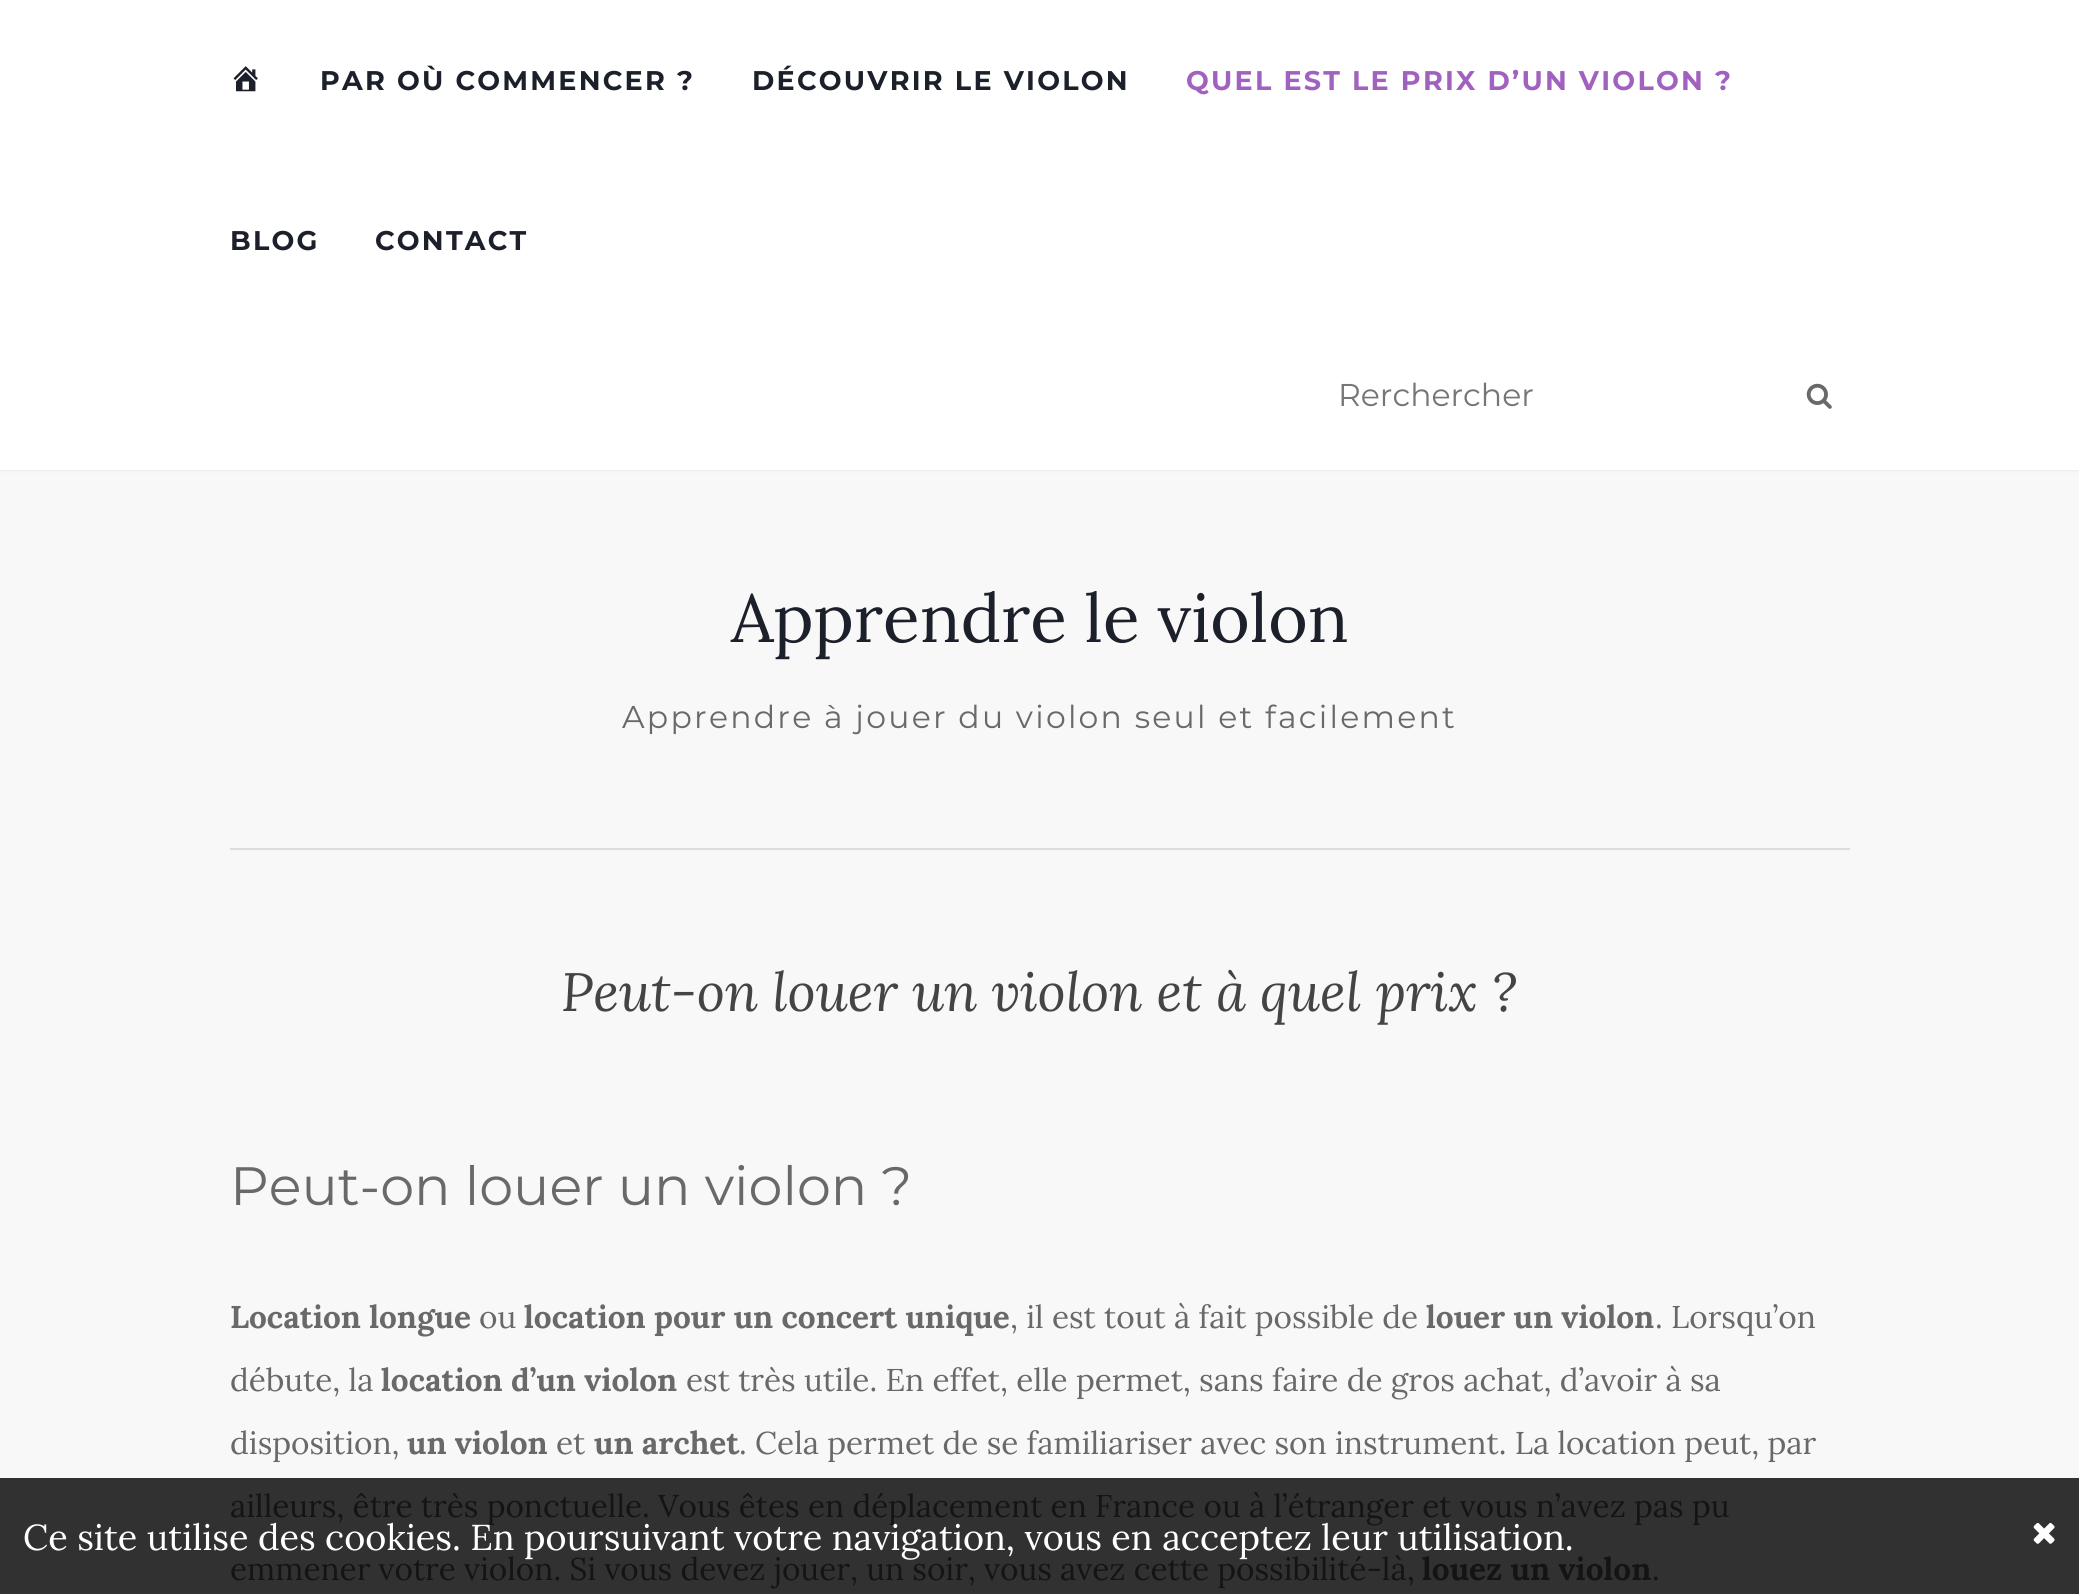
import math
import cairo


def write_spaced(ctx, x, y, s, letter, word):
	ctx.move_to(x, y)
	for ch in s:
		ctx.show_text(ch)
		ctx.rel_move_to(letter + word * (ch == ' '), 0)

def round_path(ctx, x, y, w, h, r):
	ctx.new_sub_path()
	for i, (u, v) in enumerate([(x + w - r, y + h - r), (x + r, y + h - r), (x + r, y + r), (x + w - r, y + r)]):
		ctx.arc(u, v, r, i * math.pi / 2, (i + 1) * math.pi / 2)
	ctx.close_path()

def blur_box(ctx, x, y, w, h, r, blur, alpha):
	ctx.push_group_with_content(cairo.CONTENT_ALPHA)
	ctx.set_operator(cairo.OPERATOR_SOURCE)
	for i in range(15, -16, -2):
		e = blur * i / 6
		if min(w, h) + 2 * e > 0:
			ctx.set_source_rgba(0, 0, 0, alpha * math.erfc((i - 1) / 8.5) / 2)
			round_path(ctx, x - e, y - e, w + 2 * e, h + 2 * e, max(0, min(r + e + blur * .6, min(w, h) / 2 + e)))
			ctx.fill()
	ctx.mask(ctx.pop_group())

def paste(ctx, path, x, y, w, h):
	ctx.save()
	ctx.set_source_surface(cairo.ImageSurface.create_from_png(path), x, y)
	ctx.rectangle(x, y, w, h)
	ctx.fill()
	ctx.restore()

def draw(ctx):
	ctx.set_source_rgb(0.969, 0.969, 0.969)
	ctx.paint()
	ctx.set_source_rgb(0.192, 0.192, 0.192)
	ctx.rectangle(0, 1478, 2079, 116)
	ctx.fill()
	ctx.set_source_rgb(0.89, 0.89, 0.89)
	blur_box(ctx, 0, 0, 2079, 470, 0, 2, 1)
	ctx.set_source_rgb(1, 1, 1)
	ctx.rectangle(0, 0, 2079, 470)
	ctx.fill()
	paste(ctx, 'media/1.png', 233, 66, 25, 26)
	ctx.select_font_face('Montserrat', cairo.FONT_SLANT_NORMAL, cairo.FONT_WEIGHT_BOLD)
	ctx.set_font_size(27)
	ctx.set_source_rgb(0.11, 0.125, 0.165)
	write_spaced(ctx, 320, 90, 'PAR OÙ COMMENCER ?', 2.25, 0)
	write_spaced(ctx, 752, 90, 'DÉCOUVRIR LE VIOLON', 2.25, 0)
	ctx.set_source_rgb(0.631, 0.38, 0.749)
	write_spaced(ctx, 1186, 90, 'QUEL EST LE PRIX D’UN VIOLON ?', 2.25, 0)
	ctx.set_source_rgb(0.11, 0.125, 0.165)
	write_spaced(ctx, 230, 250, 'BLOG', 2.25, 0)
	write_spaced(ctx, 375, 250, 'CONTACT', 2.25, 0)
	ctx.select_font_face('Montserrat')
	ctx.set_font_size(31.5)
	ctx.set_source_rgb(0.459, 0.459, 0.459)
	ctx.move_to(1338, 406)
	ctx.show_text('Rerchercher')
	paste(ctx, 'media/2.png', 1806, 383, 26, 26)
	ctx.select_font_face('Lora')
	ctx.set_font_size(67.5)
	ctx.set_source_rgb(0.11, 0.125, 0.165)
	ctx.move_to(731, 642)
	ctx.show_text('Apprendre le violon')
	ctx.select_font_face('Montserrat')
	ctx.set_font_size(31.5)
	ctx.set_source_rgb(0.412, 0.412, 0.412)
	write_spaced(ctx, 622, 728, 'Apprendre à jouer du violon seul et facilement', 2.25, 0)
	ctx.set_source_rgb(0.867, 0.867, 0.867)
	ctx.rectangle(230, 848, 1620, 2)
	ctx.fill()
	ctx.select_font_face('Lora', cairo.FONT_SLANT_ITALIC)
	ctx.set_font_size(54)
	ctx.set_source_rgb(0.267, 0.267, 0.267)
	ctx.move_to(561, 1011)
	ctx.show_text('Peut-on louer un violon et à quel prix ?')
	ctx.select_font_face('Montserrat')
	ctx.set_source_rgb(0.412, 0.412, 0.412)
	ctx.move_to(230, 1205)
	ctx.show_text('Peut-on louer un violon ?')
	ctx.select_font_face('Lora', cairo.FONT_SLANT_NORMAL, cairo.FONT_WEIGHT_BOLD)
	ctx.set_font_size(31.5)
	ctx.move_to(230, 1328)
	ctx.show_text('Location longue')
	ctx.select_font_face('Lora')
	ctx.move_to(479, 1328)
	ctx.show_text('ou')
	ctx.select_font_face('Lora', cairo.FONT_SLANT_NORMAL, cairo.FONT_WEIGHT_BOLD)
	ctx.move_to(524, 1328)
	ctx.show_text('location pour un concert unique')
	ctx.select_font_face('Lora')
	ctx.move_to(1010, 1328)
	ctx.show_text(', il est tout à fait possible de')
	ctx.select_font_face('Lora', cairo.FONT_SLANT_NORMAL, cairo.FONT_WEIGHT_BOLD)
	ctx.move_to(1426, 1328)
	ctx.show_text('louer un violon')
	ctx.select_font_face('Lora')
	ctx.move_to(1655, 1328)
	ctx.show_text('. Lorsqu’on')
	ctx.move_to(230, 1391)
	ctx.show_text('débute, la')
	ctx.select_font_face('Lora', cairo.FONT_SLANT_NORMAL, cairo.FONT_WEIGHT_BOLD)
	ctx.move_to(381, 1391)
	ctx.show_text('location d’un violon')
	ctx.select_font_face('Lora')
	ctx.move_to(686, 1391)
	ctx.show_text('est très utile. En effet, elle permet, sans faire de gros achat, d’avoir à sa')
	ctx.move_to(230, 1454)
	ctx.show_text('disposition,')
	ctx.select_font_face('Lora', cairo.FONT_SLANT_NORMAL, cairo.FONT_WEIGHT_BOLD)
	ctx.move_to(407, 1454)
	ctx.show_text('un violon')
	ctx.select_font_face('Lora')
	ctx.move_to(556, 1454)
	ctx.show_text('et')
	ctx.select_font_face('Lora', cairo.FONT_SLANT_NORMAL, cairo.FONT_WEIGHT_BOLD)
	ctx.move_to(594, 1454)
	ctx.show_text('un archet')
	ctx.select_font_face('Lora')
	ctx.move_to(739, 1454)
	ctx.show_text('. Cela permet de se familiariser avec son instrument. La location peut, par')
	ctx.set_source_rgb(0.082, 0.082, 0.082)
	ctx.move_to(230, 1517)
	ctx.show_text('ailleurs, être très ponctuelle. Vous êtes en déplacement en France ou à l’étranger et vous n’avez pas pu')
	ctx.move_to(230, 1580)
	ctx.show_text('emmener votre violon. Si vous devez jouer, un soir, vous avez cette possibilité-là,')
	ctx.select_font_face('Lora', cairo.FONT_SLANT_NORMAL, cairo.FONT_WEIGHT_BOLD)
	ctx.move_to(1422, 1580)
	ctx.show_text('louez un violon')
	ctx.select_font_face('Lora')
	ctx.move_to(1652, 1580)
	ctx.show_text('.')
	ctx.set_font_size(36)
	ctx.set_source_rgb(1, 1, 1)
	ctx.move_to(23, 1550)
	ctx.show_text('Ce site utilise des cookies. En poursuivant votre navigation, vous en acceptez leur utilisation.')
	paste(ctx, 'media/3.png', 2033, 1522, 22, 22)


surface = cairo.ImageSurface(cairo.FORMAT_RGB24, 2079, 1594)
ctx = cairo.Context(surface)
options = cairo.FontOptions()
options.set_hint_metrics(cairo.HINT_METRICS_OFF)
options.set_hint_style(cairo.HINT_STYLE_NONE)
ctx.set_font_options(options)
ctx.set_miter_limit(4)
draw(ctx)
surface.write_to_png('image.png')
